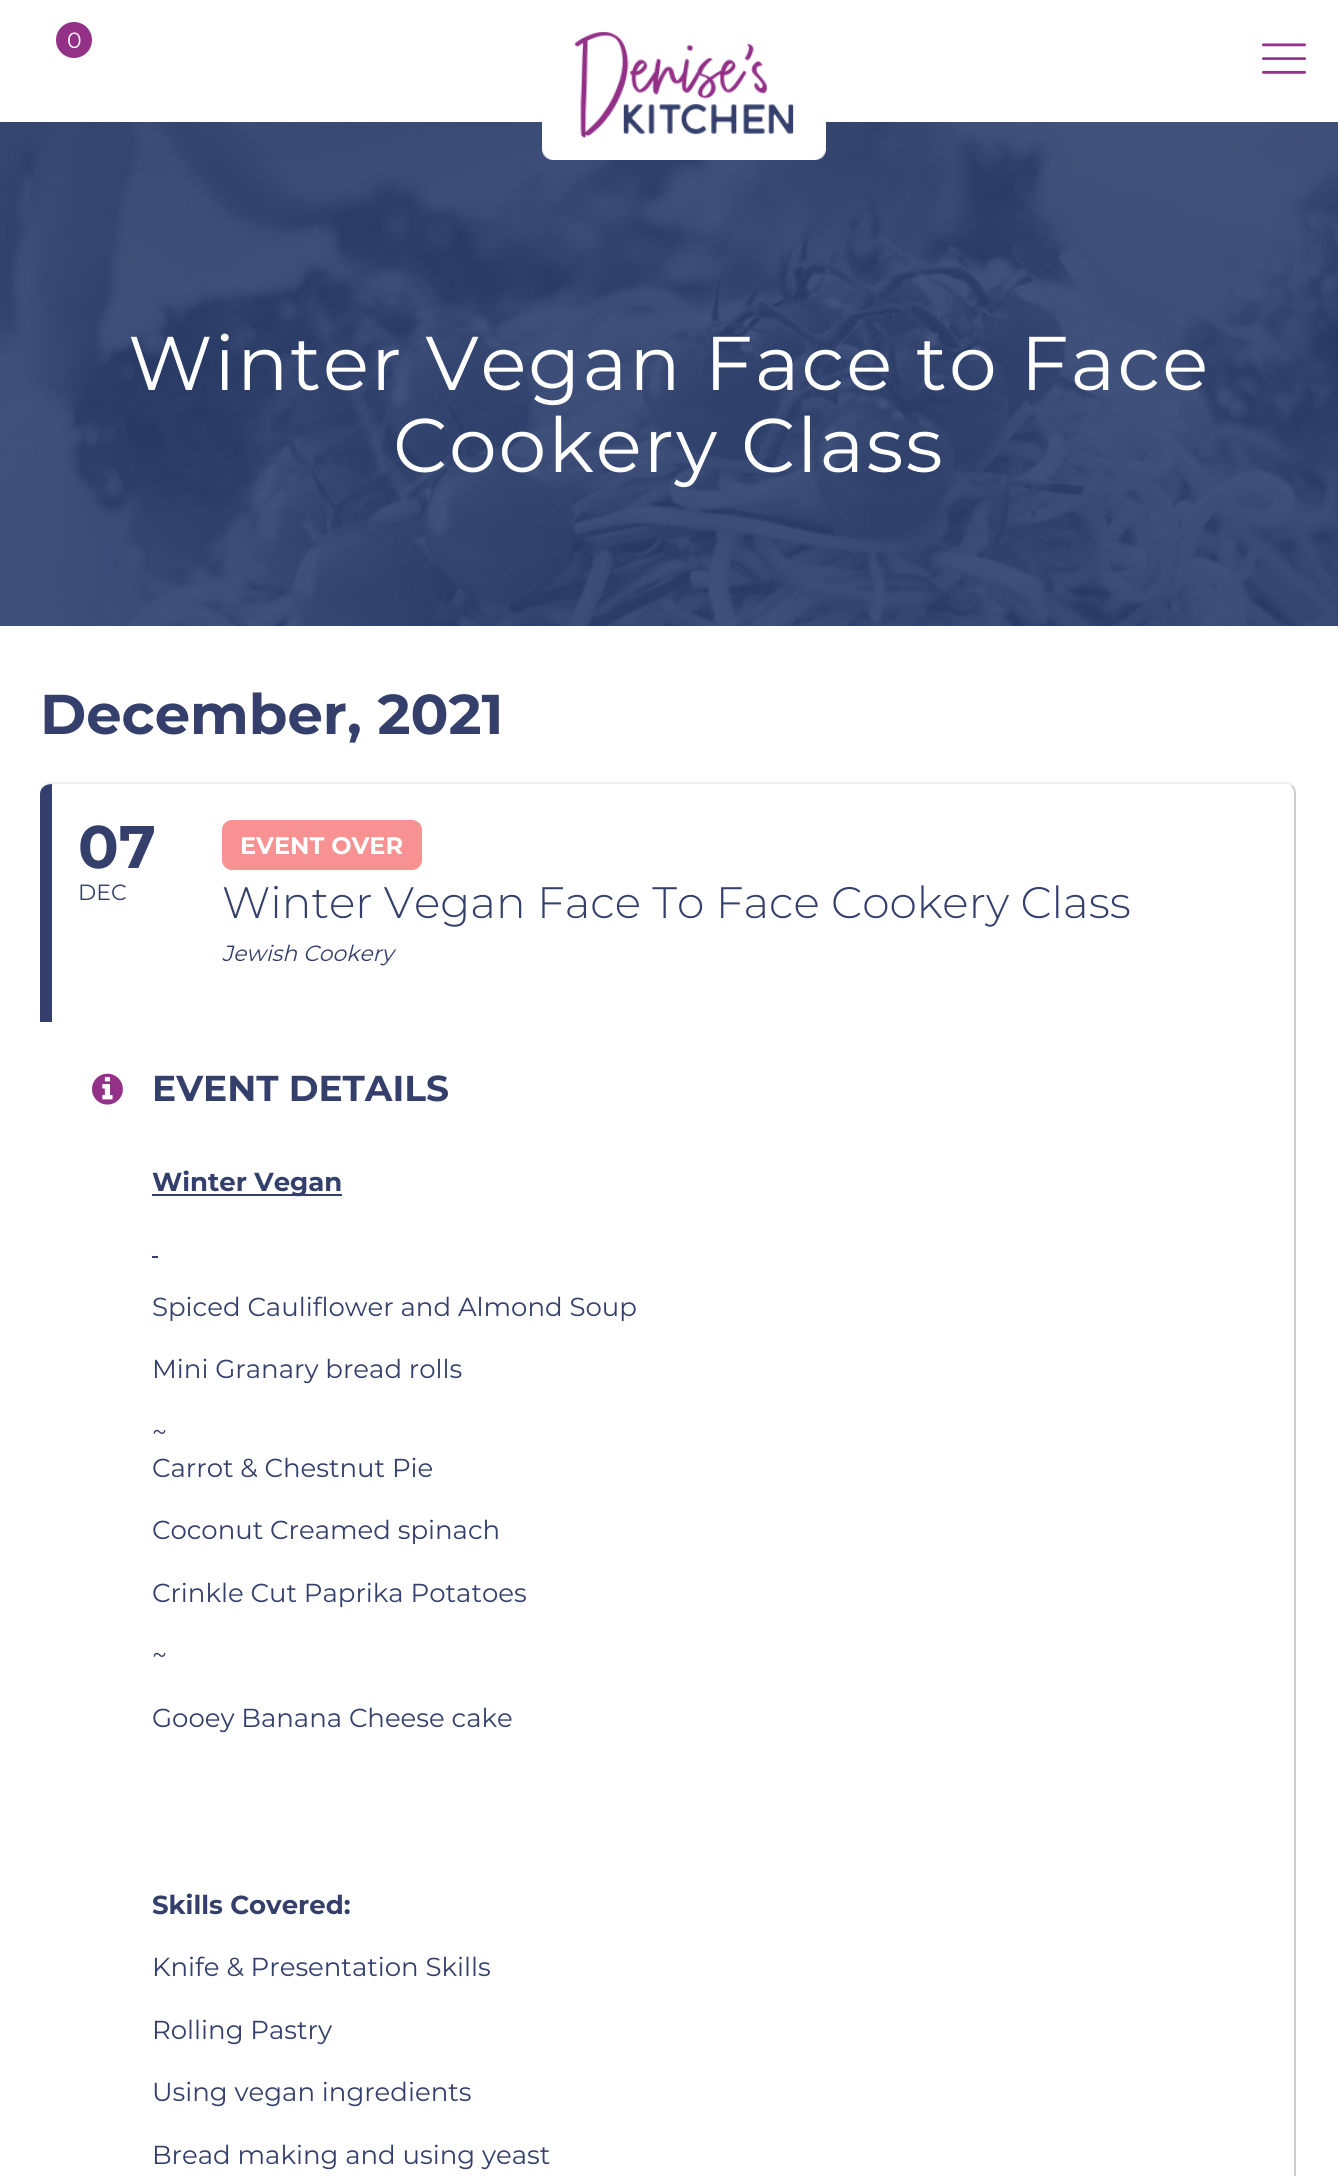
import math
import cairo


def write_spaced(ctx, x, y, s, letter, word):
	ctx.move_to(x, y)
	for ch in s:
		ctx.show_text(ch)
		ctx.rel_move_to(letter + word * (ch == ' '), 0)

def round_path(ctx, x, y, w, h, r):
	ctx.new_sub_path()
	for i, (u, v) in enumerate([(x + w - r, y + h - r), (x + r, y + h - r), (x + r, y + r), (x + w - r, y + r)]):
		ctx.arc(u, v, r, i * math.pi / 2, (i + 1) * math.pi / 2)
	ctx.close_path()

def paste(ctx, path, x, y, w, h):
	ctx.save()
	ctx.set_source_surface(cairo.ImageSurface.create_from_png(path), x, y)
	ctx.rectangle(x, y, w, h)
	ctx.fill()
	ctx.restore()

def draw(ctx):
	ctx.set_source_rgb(1, 1, 1)
	ctx.paint()
	ctx.set_source_rgb(0.576, 0.188, 0.533)
	ctx.arc(74, 40, 18, 0, 2 * math.pi)
	ctx.fill()
	ctx.select_font_face('Montserrat')
	ctx.set_font_size(22)
	ctx.set_source_rgb(1, 1, 1)
	ctx.move_to(67, 48)
	ctx.show_text('0')
	paste(ctx, 'media/3.png', 0, 122, 1338, 504)
	paste(ctx, 'media/1.png', 542, 32, 284, 128)
	paste(ctx, 'media/2.png', 1262, 43, 44, 31)
	ctx.set_font_size(76)
	write_spaced(ctx, 128, 390, 'Winter Vegan Face to Face', 2, 0)
	write_spaced(ctx, 393, 472, 'Cookery Class', 2, 0)
	ctx.select_font_face('Montserrat', cairo.FONT_SLANT_NORMAL, cairo.FONT_WEIGHT_BOLD)
	ctx.set_font_size(56)
	ctx.set_source_rgb(0.204, 0.251, 0.42)
	ctx.move_to(40, 734)
	ctx.show_text('December, 2021')
	ctx.set_source_rgb(0.937, 0.933, 0.933)
	ctx.new_path()
	ctx.move_to(52, 782)
	ctx.curve_to(45, 782, 40, 787, 40, 794)
	ctx.curve_to(40, 788, 45, 784, 52, 784)
	ctx.line_to(1284, 784)
	ctx.curve_to(1287, 784, 1290, 785, 1291, 787)
	ctx.line_to(1293, 785)
	ctx.curve_to(1290, 783, 1288, 782, 1284, 782)
	ctx.close_path()
	ctx.fill()
	ctx.set_source_rgb(0.804, 0.804, 0.804)
	ctx.new_path()
	ctx.move_to(1296, 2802)
	ctx.line_to(1296, 794)
	ctx.curve_to(1296, 790, 1295, 788, 1293, 785)
	ctx.line_to(1291, 787)
	ctx.curve_to(1293, 788, 1294, 791, 1294, 794)
	ctx.line_to(1294, 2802)
	ctx.curve_to(1294, 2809, 1290, 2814, 1284, 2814)
	ctx.curve_to(1291, 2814, 1296, 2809, 1296, 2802)
	ctx.close_path()
	ctx.fill()
	ctx.set_source_rgb(1, 1, 1)
	ctx.new_path()
	ctx.move_to(52, 784)
	ctx.curve_to(45, 784, 40, 788, 40, 794)
	ctx.line_to(40, 1022)
	ctx.line_to(1294, 1022)
	ctx.line_to(1294, 794)
	ctx.curve_to(1294, 788, 1290, 784, 1284, 784)
	ctx.close_path()
	ctx.fill()
	ctx.set_source_rgb(0.204, 0.251, 0.42)
	ctx.new_path()
	ctx.move_to(52, 784)
	ctx.curve_to(45, 784, 40, 788, 40, 794)
	ctx.line_to(40, 1022)
	ctx.line_to(52, 1022)
	ctx.close_path()
	ctx.fill()
	ctx.set_font_size(60)
	ctx.move_to(78, 868)
	ctx.show_text('07')
	ctx.select_font_face('Montserrat')
	ctx.set_font_size(22)
	ctx.move_to(78, 900)
	ctx.show_text('DEC')
	ctx.set_source_rgb(0.969, 0.569, 0.569)
	round_path(ctx, 222, 820, 200, 50, 10)
	ctx.fill()
	ctx.select_font_face('Montserrat', cairo.FONT_SLANT_NORMAL, cairo.FONT_WEIGHT_BOLD)
	ctx.set_font_size(24)
	ctx.set_source_rgb(1, 1, 1)
	ctx.move_to(240, 854)
	ctx.show_text('EVENT OVER')
	ctx.select_font_face('Montserrat Light')
	ctx.set_font_size(44)
	ctx.set_source_rgb(0.204, 0.251, 0.42)
	ctx.move_to(222, 918)
	ctx.show_text('Winter Vegan Face To Face Cookery Class')
	ctx.select_font_face('Montserrat', cairo.FONT_SLANT_ITALIC)
	ctx.set_font_size(22)
	ctx.move_to(222, 961)
	ctx.show_text('Jewish Cookery')
	paste(ctx, 'media/4.png', 92, 1073, 31, 32)
	ctx.select_font_face('Montserrat', cairo.FONT_SLANT_NORMAL, cairo.FONT_WEIGHT_BOLD)
	ctx.set_font_size(36)
	ctx.move_to(152, 1101)
	ctx.show_text('EVENT DETAILS')
	ctx.rectangle(152, 1194, 190, 2)
	ctx.fill()
	ctx.set_font_size(26)
	ctx.move_to(152, 1191)
	ctx.show_text('Winter Vegan')
	ctx.rectangle(152, 1256, 6, 2)
	ctx.fill()
	ctx.select_font_face('Montserrat')
	for x, y, s in [
		(152, 1316, 'Spiced Cauliflower and Almond Soup'),
		(152, 1378, 'Mini Granary bread rolls'),
		(152, 1441, '~'),
		(152, 1477, 'Carrot & Chestnut Pie'),
		(152, 1539, 'Coconut Creamed spinach'),
		(152, 1602, 'Crinkle Cut Paprika Potatoes'),
		(152, 1664, '~'),
		(152, 1727, 'Gooey Banana Cheese cake'),
	]:
		ctx.move_to(x, y)
		ctx.show_text(s)
	ctx.select_font_face('Montserrat', cairo.FONT_SLANT_NORMAL, cairo.FONT_WEIGHT_BOLD)
	ctx.move_to(152, 1914)
	ctx.show_text('Skills Covered:')
	ctx.select_font_face('Montserrat')
	for x, y, s in [
		(152, 1976, 'Knife & Presentation Skills'),
		(152, 2039, 'Rolling Pastry'),
		(152, 2101, 'Using vegan ingredients'),
		(152, 2164, 'Bread making and using yeast'),
	]:
		ctx.move_to(x, y)
		ctx.show_text(s)


surface = cairo.ImageSurface(cairo.FORMAT_RGB24, 1338, 2176)
ctx = cairo.Context(surface)
options = cairo.FontOptions()
options.set_hint_metrics(cairo.HINT_METRICS_OFF)
options.set_hint_style(cairo.HINT_STYLE_NONE)
ctx.set_font_options(options)
ctx.set_miter_limit(4)
draw(ctx)
surface.write_to_png('image.png')
